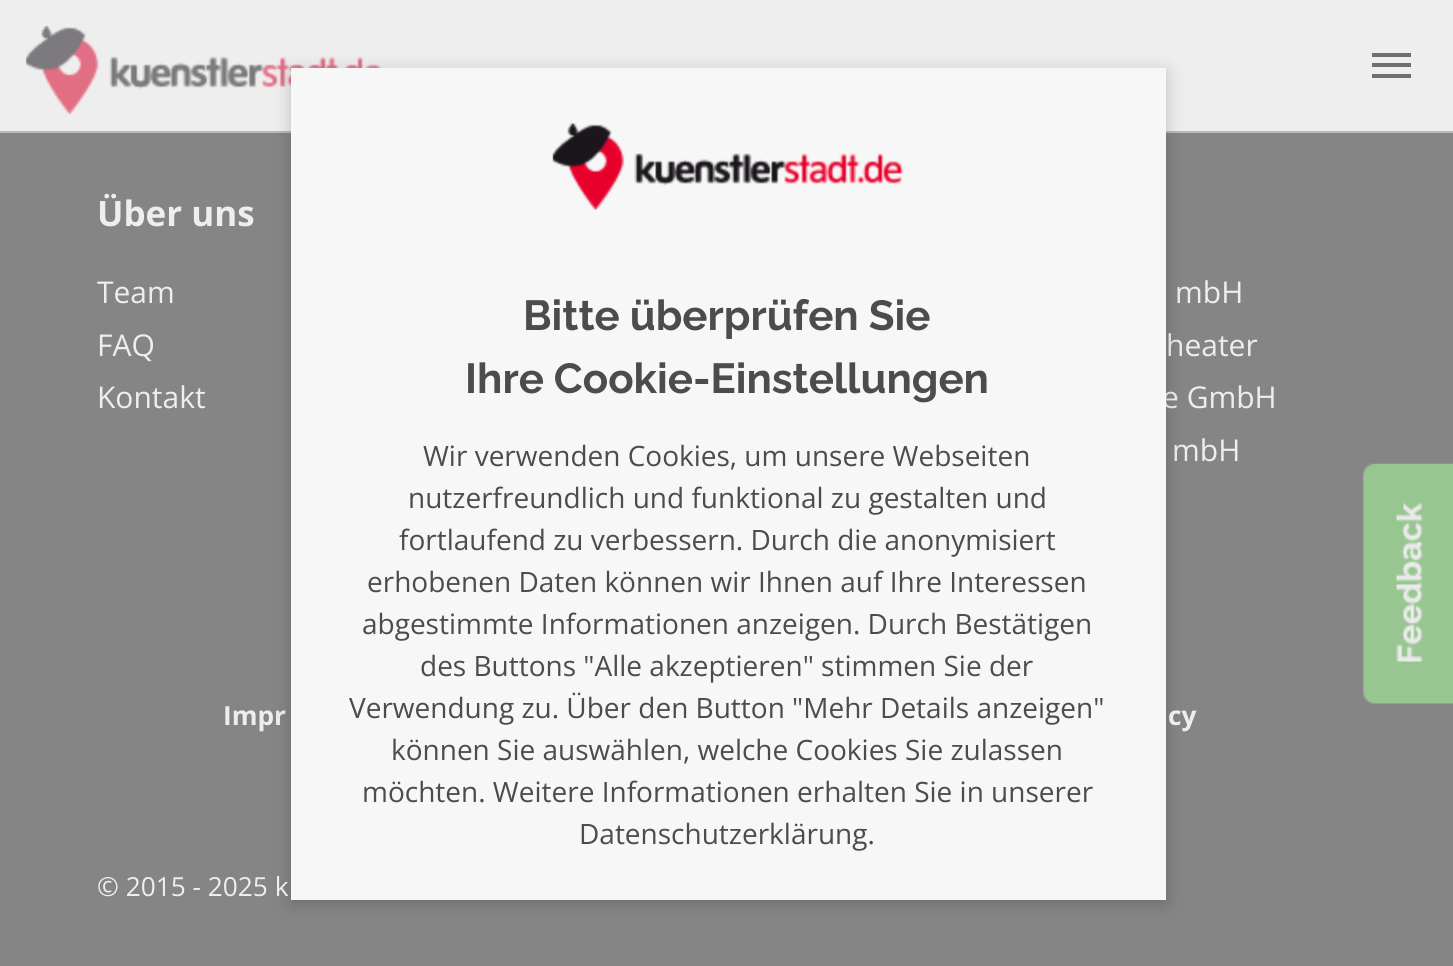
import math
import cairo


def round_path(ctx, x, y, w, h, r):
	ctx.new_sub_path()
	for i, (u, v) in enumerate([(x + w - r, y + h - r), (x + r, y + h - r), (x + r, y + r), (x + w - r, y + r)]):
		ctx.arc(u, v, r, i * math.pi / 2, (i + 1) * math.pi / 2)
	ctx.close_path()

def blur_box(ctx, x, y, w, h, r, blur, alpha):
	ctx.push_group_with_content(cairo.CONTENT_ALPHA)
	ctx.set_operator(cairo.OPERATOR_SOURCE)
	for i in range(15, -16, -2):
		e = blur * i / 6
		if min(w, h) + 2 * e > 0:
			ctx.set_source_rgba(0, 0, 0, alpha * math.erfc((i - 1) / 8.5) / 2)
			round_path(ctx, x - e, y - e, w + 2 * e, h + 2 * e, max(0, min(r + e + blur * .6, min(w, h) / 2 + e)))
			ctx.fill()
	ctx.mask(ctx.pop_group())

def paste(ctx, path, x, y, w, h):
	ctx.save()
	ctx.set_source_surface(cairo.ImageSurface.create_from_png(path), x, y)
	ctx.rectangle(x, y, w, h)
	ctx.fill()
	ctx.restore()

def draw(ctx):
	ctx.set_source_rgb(0.522, 0.522, 0.522)
	ctx.paint()
	ctx.set_source_rgb(0.933, 0.933, 0.933)
	ctx.rectangle(0, 0, 1453, 131)
	ctx.fill()
	ctx.set_source_rgb(0.729, 0.729, 0.729)
	ctx.rectangle(0, 131, 1453, 2)
	ctx.fill()
	paste(ctx, 'media/1.png', 26, 26, 356, 89)
	ctx.set_source_rgb(0.435, 0.435, 0.435)
	ctx.rectangle(1372, 53, 39, 4)
	ctx.rectangle(1372, 63, 39, 4)
	ctx.rectangle(1372, 74, 39, 4)
	ctx.fill()
	ctx.select_font_face('Open Sans', cairo.FONT_SLANT_NORMAL, cairo.FONT_WEIGHT_BOLD)
	ctx.set_font_size(35)
	ctx.set_source_rgb(0.933, 0.933, 0.933)
	ctx.move_to(97, 226)
	ctx.show_text('Über uns')
	ctx.select_font_face('Open Sans')
	ctx.set_font_size(30)
	for x, y, s in [
		(97, 303, 'Team'),
		(97, 356, 'FAQ'),
		(97, 408, 'Kontakt'),
		(1175, 303, 'mbH'),
		(1166, 356, 'heater'),
		(1162, 408, 'e GmbH'),
		(1172, 461, 'mbH'),
	]:
		ctx.move_to(x, y)
		ctx.show_text(s)
	ctx.select_font_face('Open Sans', cairo.FONT_SLANT_NORMAL, cairo.FONT_WEIGHT_BOLD)
	ctx.set_font_size(26.25)
	ctx.move_to(223, 725)
	ctx.show_text('Impr')
	ctx.set_source_rgb(0, 0, 0)
	blur_box(ctx, 291, 72, 875, 831, 0, 9, 0.2)
	ctx.set_source_rgb(0.965, 0.965, 0.965)
	ctx.rectangle(291, 68, 875, 832)
	ctx.fill()
	paste(ctx, 'media/2.png', 552, 123, 352, 87)
	ctx.select_font_face('Raleway', cairo.FONT_SLANT_NORMAL, cairo.FONT_WEIGHT_BOLD)
	ctx.set_font_size(42)
	ctx.set_source_rgb(0.298, 0.298, 0.298)
	ctx.move_to(523, 330)
	ctx.show_text('Bitte überprüfen Sie')
	ctx.move_to(465, 393)
	ctx.show_text('Ihre Cookie-Einstellungen')
	ctx.select_font_face('Open Sans')
	ctx.set_font_size(28)
	for x, y, s in [
		(423, 466, 'Wir verwenden Cookies, um unsere Webseiten'),
		(408, 508, 'nutzerfreundlich und funktional zu gestalten und'),
		(399, 550, 'fortlaufend zu verbessern. Durch die anonymisiert'),
		(367, 592, 'erhobenen Daten können wir Ihnen auf Ihre Interessen'),
		(362, 634, 'abgestimmte Informationen anzeigen. Durch Bestätigen'),
		(420, 676, 'des Buttons "Alle akzeptieren" stimmen Sie der'),
		(349, 718, 'Verwendung zu. Über den Button "Mehr Details anzeigen"'),
		(391, 760, 'können Sie auswählen, welche Cookies Sie zulassen'),
		(362, 802, 'möchten. Weitere Informationen erhalten Sie in unserer'),
		(579, 844, 'Datenschutzerklärung.'),
	]:
		ctx.move_to(x, y)
		ctx.show_text(s)
	ctx.select_font_face('Open Sans', cairo.FONT_SLANT_NORMAL, cairo.FONT_WEIGHT_BOLD)
	ctx.set_font_size(26.25)
	ctx.set_source_rgb(0.933, 0.933, 0.933)
	ctx.move_to(1168, 725)
	ctx.show_text('cy')
	ctx.select_font_face('Open Sans')
	ctx.move_to(97, 896)
	ctx.show_text('© 2015 - 2025 k')
	paste(ctx, 'media/3.png', 1363, 463, 90, 241)


surface = cairo.ImageSurface(cairo.FORMAT_RGB24, 1453, 966)
ctx = cairo.Context(surface)
options = cairo.FontOptions()
options.set_hint_metrics(cairo.HINT_METRICS_OFF)
options.set_hint_style(cairo.HINT_STYLE_NONE)
ctx.set_font_options(options)
ctx.set_miter_limit(4)
draw(ctx)
surface.write_to_png('image.png')
